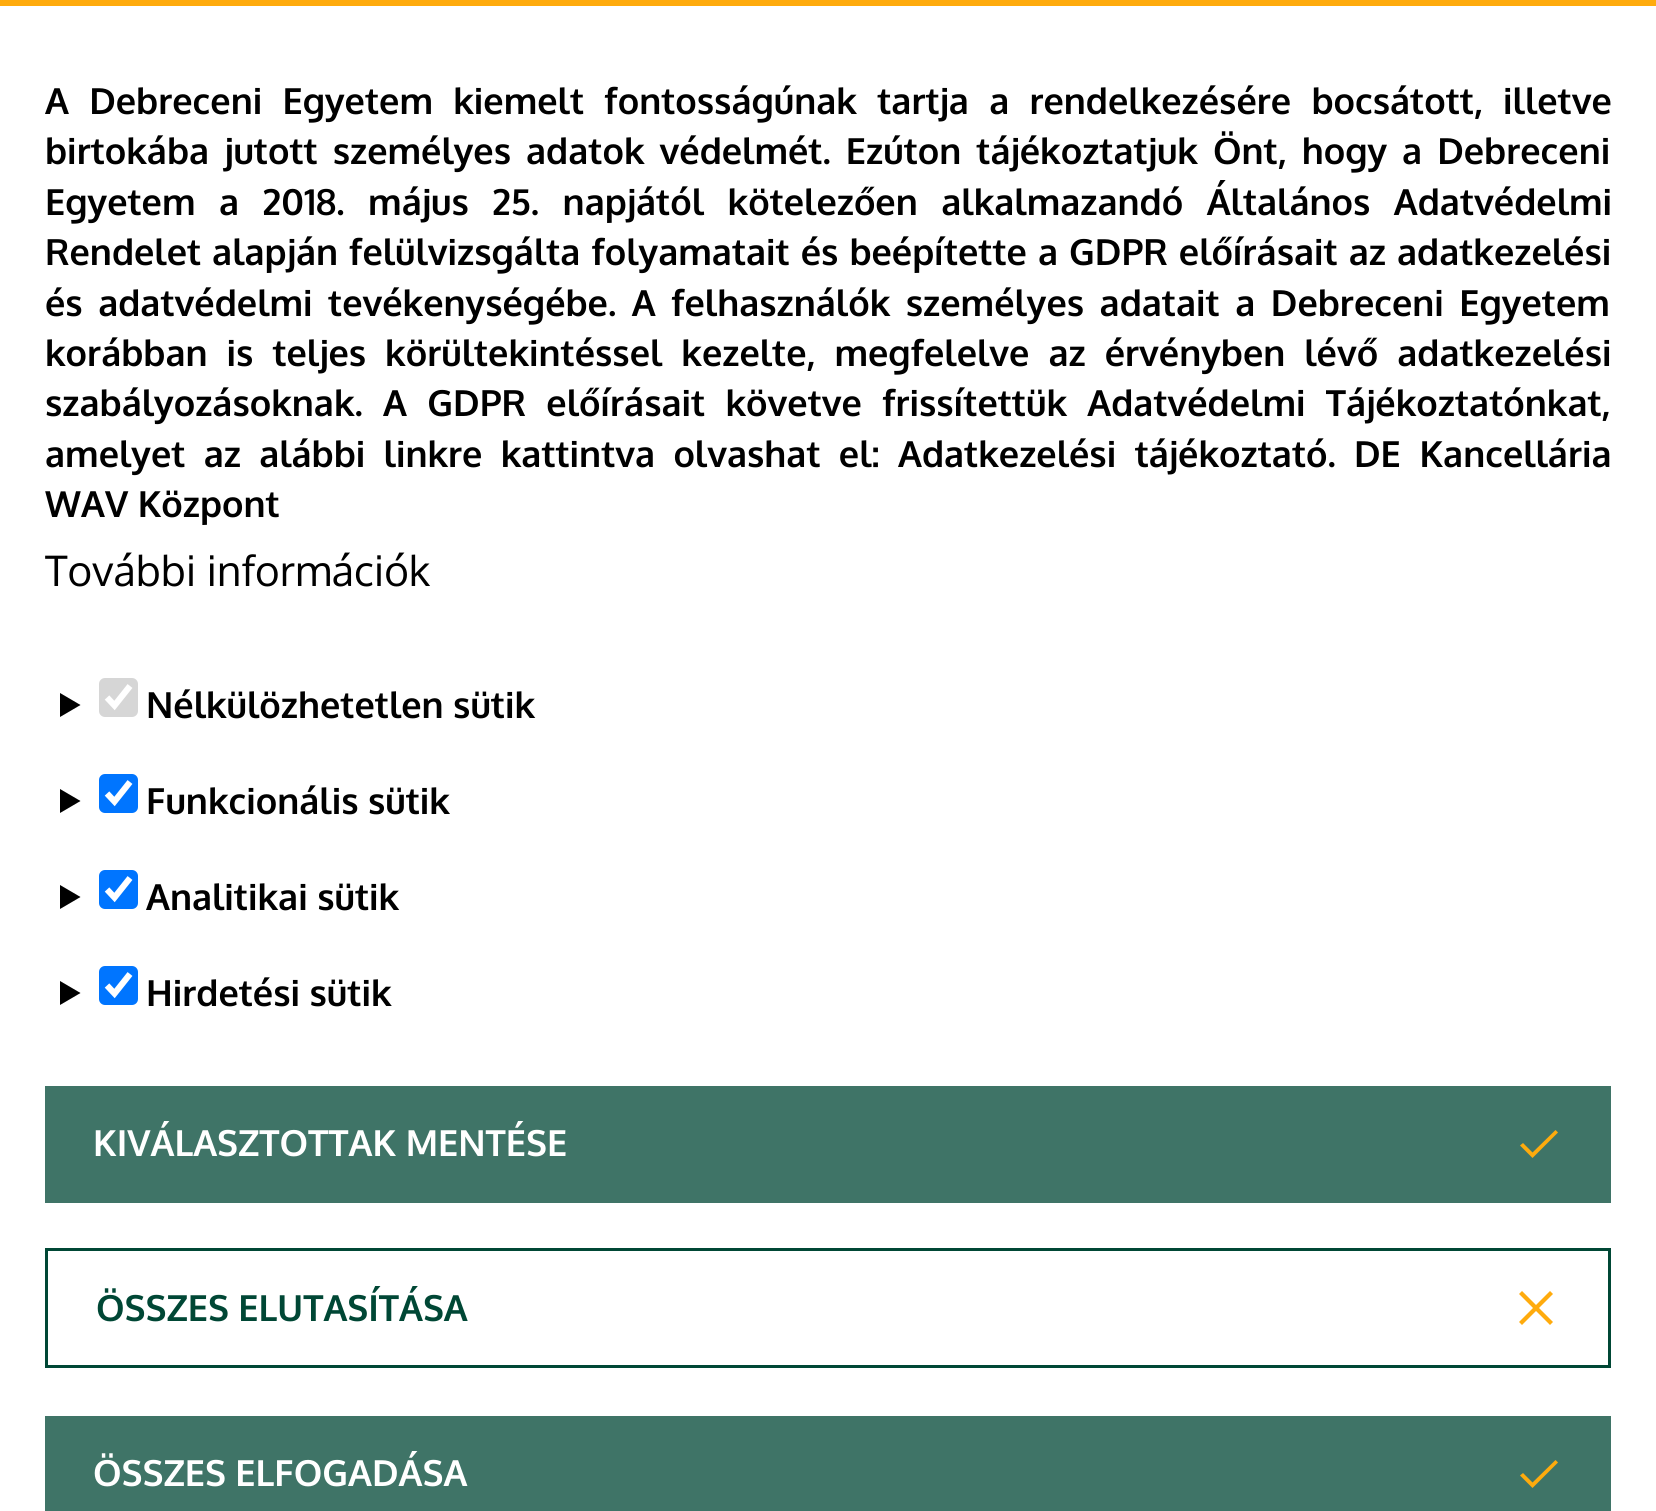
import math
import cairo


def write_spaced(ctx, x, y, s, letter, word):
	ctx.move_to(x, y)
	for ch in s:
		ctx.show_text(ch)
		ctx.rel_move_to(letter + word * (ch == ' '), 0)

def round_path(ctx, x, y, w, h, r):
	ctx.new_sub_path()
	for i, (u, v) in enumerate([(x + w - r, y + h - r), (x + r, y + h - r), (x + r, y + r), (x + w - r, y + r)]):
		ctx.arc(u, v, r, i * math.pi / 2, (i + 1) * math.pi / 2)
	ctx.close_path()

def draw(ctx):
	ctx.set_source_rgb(1, 1, 1)
	ctx.paint()
	ctx.set_source_rgb(1, 0.671, 0.051)
	ctx.rectangle(0, 0, 1656, 6)
	ctx.fill()
	ctx.select_font_face('Oxygen', cairo.FONT_SLANT_NORMAL, cairo.FONT_WEIGHT_BOLD)
	ctx.set_font_size(36)
	ctx.set_source_rgb(0, 0, 0)
	write_spaced(ctx, 45, 114, 'A Debreceni Egyetem kiemelt fontosságúnak tartja a rendelkezésére bocsátott, illetve', 0, 10.75)
	write_spaced(ctx, 45, 164, 'birtokába jutott személyes adatok védelmét. Ezúton tájékoztatjuk Önt, hogy a Debreceni', 0, 5.5)
	write_spaced(ctx, 45, 215, 'Egyetem a 2018. május 25. napjától kötelezően alkalmazandó Általános Adatvédelmi', 0, 14)
	write_spaced(ctx, 45, 265, 'Rendelet alapján felülvizsgálta folyamatait és beépítette a GDPR előírásait az adatkezelési', 0, 1.5)
	write_spaced(ctx, 45, 316, 'és adatvédelmi tevékenységébe. A felhasználók személyes adatait a Debreceni Egyetem', 0, 6)
	write_spaced(ctx, 45, 366, 'korábban is teljes körültekintéssel kezelte, megfelelve az érvényben lévő adatkezelési', 0, 9.5)
	write_spaced(ctx, 45, 416, 'szabályozásoknak. A GDPR előírásait követve frissítettük Adatvédelmi Tájékoztatónkat,', 0, 10.75)
	write_spaced(ctx, 45, 467, 'amelyet az alábbi linkre kattintva olvashat el:', 0, 8.75)
	write_spaced(ctx, 898, 467, 'Adatkezelési tájékoztató.', 0, 9)
	write_spaced(ctx, 1354, 467, 'DE Kancellária', 0, 9)
	ctx.move_to(45, 517)
	ctx.show_text('WAV Központ')
	ctx.select_font_face('Oxygen')
	ctx.set_font_size(42)
	ctx.move_to(45, 586)
	ctx.show_text('További információk')
	ctx.new_path()
	ctx.move_to(60, 693)
	ctx.line_to(80.5, 705)
	ctx.line_to(60, 717)
	ctx.close_path()
	ctx.fill()
	ctx.set_source_rgb(0.839, 0.839, 0.839)
	round_path(ctx, 99, 678, 39, 39, 6)
	ctx.fill()
	ctx.new_path()
	ctx.move_to(107, 697.5)
	ctx.line_to(114.5, 705.5)
	ctx.line_to(130, 686)
	ctx.set_source_rgb(1, 1, 1)
	ctx.set_line_width(6.2)
	ctx.stroke()
	ctx.select_font_face('Oxygen', cairo.FONT_SLANT_NORMAL, cairo.FONT_WEIGHT_BOLD)
	ctx.set_font_size(36)
	ctx.set_source_rgb(0, 0, 0)
	ctx.move_to(146, 718)
	ctx.show_text('Nélkülözhetetlen sütik')
	ctx.new_path()
	ctx.move_to(60, 789)
	ctx.line_to(80.5, 801)
	ctx.line_to(60, 813)
	ctx.close_path()
	ctx.fill()
	ctx.set_source_rgb(0, 0.459, 1)
	round_path(ctx, 99, 774, 39, 39, 6)
	ctx.fill()
	ctx.new_path()
	ctx.move_to(107, 793.5)
	ctx.line_to(114.5, 801.5)
	ctx.line_to(130, 782)
	ctx.set_source_rgb(1, 1, 1)
	ctx.stroke()
	ctx.set_source_rgb(0, 0, 0)
	ctx.move_to(146, 814)
	ctx.show_text('Funkcionális sütik')
	ctx.new_path()
	ctx.move_to(60, 885)
	ctx.line_to(80.5, 897)
	ctx.line_to(60, 909)
	ctx.close_path()
	ctx.fill()
	ctx.set_source_rgb(0, 0.459, 1)
	round_path(ctx, 99, 870, 39, 39, 6)
	ctx.fill()
	ctx.new_path()
	ctx.move_to(107, 889.5)
	ctx.line_to(114.5, 897.5)
	ctx.line_to(130, 878)
	ctx.set_source_rgb(1, 1, 1)
	ctx.stroke()
	ctx.set_source_rgb(0, 0, 0)
	ctx.move_to(146, 910)
	ctx.show_text('Analitikai sütik')
	ctx.new_path()
	ctx.move_to(60, 981)
	ctx.line_to(80.5, 993)
	ctx.line_to(60, 1005)
	ctx.close_path()
	ctx.fill()
	ctx.set_source_rgb(0, 0.459, 1)
	round_path(ctx, 99, 966, 39, 39, 6)
	ctx.fill()
	ctx.new_path()
	ctx.move_to(107, 985.5)
	ctx.line_to(114.5, 993.5)
	ctx.line_to(130, 974)
	ctx.set_source_rgb(1, 1, 1)
	ctx.stroke()
	ctx.set_source_rgb(0, 0, 0)
	ctx.move_to(146, 1006)
	ctx.show_text('Hirdetési sütik')
	ctx.set_source_rgb(0.247, 0.455, 0.404)
	ctx.rectangle(45, 1086, 1566, 117)
	ctx.fill()
	ctx.set_source_rgb(1, 1, 1)
	ctx.move_to(93, 1156)
	ctx.show_text('KIVÁLASZTOTTAK MENTÉSE')
	ctx.set_source_rgb(1, 0.671, 0.051)
	ctx.new_path()
	ctx.move_to(1532.5, 1158)
	ctx.line_to(1558, 1132.5)
	ctx.line_to(1555.5, 1130)
	ctx.line_to(1532.5, 1152.5)
	ctx.line_to(1523, 1143)
	ctx.line_to(1520, 1145.5)
	ctx.close_path()
	ctx.fill()
	ctx.rectangle(46.5, 1249.5, 1563, 117)
	ctx.set_source_rgb(0, 0.278, 0.208)
	ctx.set_line_width(3)
	ctx.stroke()
	ctx.move_to(96, 1321)
	ctx.show_text('ÖSSZES ELUTASÍTÁSA')
	ctx.set_source_rgb(1, 0.671, 0.051)
	ctx.new_path()
	ctx.move_to(1519, 1322)
	ctx.line_to(1550, 1291)
	ctx.line_to(1553, 1294)
	ctx.line_to(1522, 1325)
	ctx.close_path()
	ctx.move_to(1522, 1291)
	ctx.line_to(1553, 1322)
	ctx.line_to(1550, 1325)
	ctx.line_to(1519, 1294)
	ctx.close_path()
	ctx.fill()
	ctx.set_source_rgb(0.247, 0.455, 0.404)
	ctx.rectangle(45, 1416, 1566, 95)
	ctx.fill()
	ctx.set_source_rgb(1, 1, 1)
	ctx.move_to(93, 1486)
	ctx.show_text('ÖSSZES ELFOGADÁSA')
	ctx.set_source_rgb(1, 0.671, 0.051)
	ctx.new_path()
	ctx.move_to(1532.5, 1488)
	ctx.line_to(1558, 1462.5)
	ctx.line_to(1555.5, 1460)
	ctx.line_to(1532.5, 1482.5)
	ctx.line_to(1523, 1473)
	ctx.line_to(1520, 1475.5)
	ctx.close_path()
	ctx.fill()


surface = cairo.ImageSurface(cairo.FORMAT_RGB24, 1656, 1511)
ctx = cairo.Context(surface)
options = cairo.FontOptions()
options.set_hint_metrics(cairo.HINT_METRICS_OFF)
options.set_hint_style(cairo.HINT_STYLE_NONE)
ctx.set_font_options(options)
ctx.set_miter_limit(4)
draw(ctx)
surface.write_to_png('image.png')
